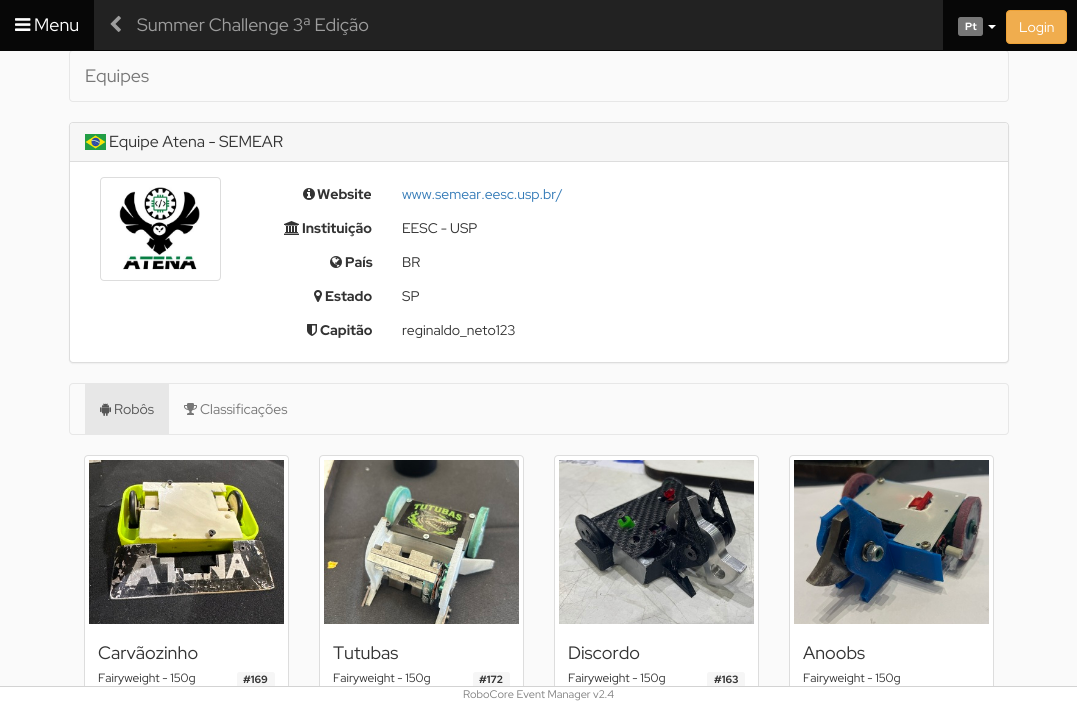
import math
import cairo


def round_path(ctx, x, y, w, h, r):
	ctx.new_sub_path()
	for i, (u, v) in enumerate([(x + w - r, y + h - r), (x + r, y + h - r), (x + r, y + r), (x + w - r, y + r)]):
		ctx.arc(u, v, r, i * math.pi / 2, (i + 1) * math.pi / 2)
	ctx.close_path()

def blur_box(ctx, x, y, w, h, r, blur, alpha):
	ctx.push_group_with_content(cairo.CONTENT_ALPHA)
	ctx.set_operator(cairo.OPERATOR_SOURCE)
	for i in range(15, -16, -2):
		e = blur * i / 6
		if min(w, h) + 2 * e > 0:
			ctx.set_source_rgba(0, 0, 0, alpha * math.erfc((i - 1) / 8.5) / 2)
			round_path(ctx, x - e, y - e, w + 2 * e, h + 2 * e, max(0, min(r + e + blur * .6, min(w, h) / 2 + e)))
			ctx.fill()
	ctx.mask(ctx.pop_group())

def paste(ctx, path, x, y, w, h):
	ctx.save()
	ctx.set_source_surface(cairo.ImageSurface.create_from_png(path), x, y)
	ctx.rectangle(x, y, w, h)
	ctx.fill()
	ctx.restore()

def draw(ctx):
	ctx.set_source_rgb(0.98, 0.98, 0.98)
	ctx.paint()
	ctx.set_source_rgb(0.133, 0.133, 0.133)
	ctx.rectangle(94, 0, 849, 50)
	ctx.fill()
	round_path(ctx, 69.5, 50.5, 939, 51, 3.5)
	ctx.set_source_rgb(0.906, 0.906, 0.906)
	ctx.set_line_width(1)
	ctx.stroke()
	ctx.set_source_rgb(0.031, 0.031, 0.031)
	ctx.rectangle(0, 50, 1077, 1)
	ctx.fill()
	ctx.rectangle(0, 0, 94, 50)
	ctx.fill()
	paste(ctx, 'media/1.png', 15, 18, 16, 13)
	ctx.select_font_face('Red Hat Display')
	ctx.set_font_size(18)
	ctx.set_source_rgb(1, 1, 1)
	ctx.move_to(34, 31)
	ctx.show_text('Menu')
	paste(ctx, 'media/2.png', 110, 15, 11, 17)
	ctx.set_source_rgb(0.616, 0.616, 0.616)
	ctx.move_to(137, 31)
	ctx.show_text('Summer Challenge 3ª Edição')
	ctx.set_source_rgb(0.031, 0.031, 0.031)
	ctx.rectangle(943, 0, 134, 50)
	ctx.fill()
	ctx.set_source_rgb(0.467, 0.467, 0.467)
	round_path(ctx, 958, 17, 25, 19, 2.5)
	ctx.fill()
	ctx.select_font_face('Red Hat Display', cairo.FONT_SLANT_NORMAL, cairo.FONT_WEIGHT_BOLD)
	ctx.set_font_size(10.5)
	ctx.set_source_rgb(1, 1, 1)
	ctx.move_to(965, 30)
	ctx.show_text('Pt')
	ctx.new_path()
	ctx.move_to(988, 25)
	ctx.line_to(996, 25)
	ctx.line_to(992, 29)
	ctx.close_path()
	ctx.fill()
	ctx.set_source_rgb(0.941, 0.678, 0.306)
	round_path(ctx, 1006.5, 10.5, 60, 33, 3.5)
	ctx.fill_preserve()
	ctx.set_source_rgb(0.933, 0.635, 0.212)
	ctx.stroke()
	ctx.select_font_face('Red Hat Display')
	ctx.set_font_size(14)
	ctx.set_source_rgb(1, 1, 1)
	ctx.move_to(1019, 32)
	ctx.show_text('Login')
	ctx.set_font_size(18)
	ctx.set_source_rgb(0.467, 0.467, 0.467)
	ctx.move_to(85, 82)
	ctx.show_text('Equipes')
	ctx.set_source_rgb(0, 0, 0)
	blur_box(ctx, 69, 123, 940, 241, 4, 0.5, 0.05)
	ctx.set_source_rgb(1, 1, 1)
	round_path(ctx, 69.5, 122.5, 939, 240, 3.5)
	ctx.fill_preserve()
	ctx.set_source_rgb(0.867, 0.867, 0.867)
	ctx.stroke()
	ctx.set_source_rgb(0.961, 0.961, 0.961)
	ctx.new_path()
	ctx.move_to(73, 123)
	ctx.line_to(1005, 123)
	ctx.curve_to(1006.5, 123, 1008, 124.5, 1008, 126)
	ctx.line_to(1008, 162)
	ctx.line_to(70, 162)
	ctx.line_to(70, 126)
	ctx.curve_to(70, 124.5, 71.5, 123, 73, 123)
	ctx.close_path()
	ctx.fill()
	ctx.set_source_rgb(0.867, 0.867, 0.867)
	ctx.rectangle(70, 161, 938, 1)
	ctx.fill()
	paste(ctx, 'media/3.png', 85, 134, 21, 16)
	ctx.set_font_size(16)
	ctx.set_source_rgb(0.2, 0.2, 0.2)
	ctx.move_to(109, 147)
	ctx.show_text('Equipe Atena - SEMEAR')
	round_path(ctx, 100.5, 177.5, 120, 103, 3.5)
	ctx.set_source_rgb(0.867, 0.867, 0.867)
	ctx.stroke()
	paste(ctx, 'media/4.png', 119, 187, 81, 83)
	paste(ctx, 'media/5.png', 303, 188, 12, 12)
	ctx.select_font_face('Red Hat Display', cairo.FONT_SLANT_NORMAL, cairo.FONT_WEIGHT_BOLD)
	ctx.set_font_size(14)
	ctx.set_source_rgb(0.2, 0.2, 0.2)
	ctx.move_to(317, 199)
	ctx.show_text('Website')
	ctx.select_font_face('Red Hat Display')
	ctx.set_source_rgb(0.2, 0.478, 0.718)
	ctx.move_to(402, 199)
	ctx.show_text('www.semear.eesc.usp.br/')
	paste(ctx, 'media/6.png', 284, 221, 15, 14)
	ctx.select_font_face('Red Hat Display', cairo.FONT_SLANT_NORMAL, cairo.FONT_WEIGHT_BOLD)
	ctx.set_source_rgb(0.2, 0.2, 0.2)
	ctx.move_to(302, 233)
	ctx.show_text('Instituição')
	ctx.select_font_face('Red Hat Display')
	ctx.move_to(402, 233)
	ctx.show_text('EESC - USP')
	paste(ctx, 'media/7.png', 330, 256, 12, 12)
	ctx.select_font_face('Red Hat Display', cairo.FONT_SLANT_NORMAL, cairo.FONT_WEIGHT_BOLD)
	ctx.move_to(345, 267)
	ctx.show_text('País')
	ctx.select_font_face('Red Hat Display')
	ctx.move_to(402, 267)
	ctx.show_text('BR')
	paste(ctx, 'media/8.png', 314, 290, 8, 12)
	ctx.select_font_face('Red Hat Display', cairo.FONT_SLANT_NORMAL, cairo.FONT_WEIGHT_BOLD)
	ctx.move_to(325, 301)
	ctx.show_text('Estado')
	ctx.select_font_face('Red Hat Display')
	ctx.move_to(402, 301)
	ctx.show_text('SP')
	paste(ctx, 'media/9.png', 307, 324, 10, 12)
	ctx.select_font_face('Red Hat Display', cairo.FONT_SLANT_NORMAL, cairo.FONT_WEIGHT_BOLD)
	ctx.move_to(320, 335)
	ctx.show_text('Capitão')
	ctx.select_font_face('Red Hat Display')
	ctx.move_to(402, 335)
	ctx.show_text('reginaldo_neto123')
	round_path(ctx, 69.5, 383.5, 939, 51, 3.5)
	ctx.set_source_rgb(0.906, 0.906, 0.906)
	ctx.stroke()
	ctx.rectangle(85, 384, 84, 50)
	ctx.fill()
	paste(ctx, 'media/10.png', 100, 403, 11, 13)
	ctx.set_source_rgb(0.333, 0.333, 0.333)
	ctx.move_to(114, 414)
	ctx.show_text('Robôs')
	paste(ctx, 'media/11.png', 184, 403, 13, 12)
	ctx.set_source_rgb(0.467, 0.467, 0.467)
	ctx.move_to(200, 414)
	ctx.show_text('Classificações')
	ctx.set_source_rgb(1, 1, 1)
	ctx.new_path()
	ctx.move_to(88, 455)
	ctx.line_to(285, 455)
	ctx.curve_to(287, 455, 289, 457, 289, 459)
	ctx.line_to(289, 703)
	ctx.line_to(84, 703)
	ctx.line_to(84, 459)
	ctx.curve_to(84, 457, 86, 455, 88, 455)
	ctx.close_path()
	ctx.fill()
	round_path(ctx, 84.5, 455.5, 204, 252, 3.5)
	ctx.set_source_rgb(0.867, 0.867, 0.867)
	ctx.stroke()
	paste(ctx, 'media/12.png', 89, 460, 195, 164)
	ctx.set_font_size(18)
	ctx.set_source_rgb(0.2, 0.2, 0.2)
	ctx.move_to(98, 659)
	ctx.show_text('Carvãozinho')
	ctx.set_font_size(12)
	ctx.move_to(98, 682)
	ctx.show_text('Fairyweight - 150g')
	ctx.set_source_rgb(0.961, 0.961, 0.961)
	round_path(ctx, 237, 672, 38, 16, 2.5)
	ctx.fill()
	ctx.select_font_face('Red Hat Display', cairo.FONT_SLANT_NORMAL, cairo.FONT_WEIGHT_BOLD)
	ctx.set_font_size(10.5)
	ctx.set_source_rgb(0.2, 0.2, 0.2)
	ctx.move_to(243, 683)
	ctx.show_text('#169')
	ctx.set_source_rgb(1, 1, 1)
	ctx.new_path()
	ctx.move_to(323, 455)
	ctx.line_to(520, 455)
	ctx.curve_to(522, 455, 524, 457, 524, 459)
	ctx.line_to(524, 703)
	ctx.line_to(319, 703)
	ctx.line_to(319, 459)
	ctx.curve_to(319, 457, 321, 455, 323, 455)
	ctx.close_path()
	ctx.fill()
	round_path(ctx, 319.5, 455.5, 204, 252, 3.5)
	ctx.set_source_rgb(0.867, 0.867, 0.867)
	ctx.stroke()
	paste(ctx, 'media/13.png', 324, 460, 195, 164)
	ctx.select_font_face('Red Hat Display')
	ctx.set_font_size(18)
	ctx.set_source_rgb(0.2, 0.2, 0.2)
	ctx.move_to(333, 659)
	ctx.show_text('Tutubas')
	ctx.set_font_size(12)
	ctx.move_to(333, 682)
	ctx.show_text('Fairyweight - 150g')
	ctx.set_source_rgb(0.961, 0.961, 0.961)
	round_path(ctx, 473, 672, 37, 16, 2.5)
	ctx.fill()
	ctx.select_font_face('Red Hat Display', cairo.FONT_SLANT_NORMAL, cairo.FONT_WEIGHT_BOLD)
	ctx.set_font_size(10.5)
	ctx.set_source_rgb(0.2, 0.2, 0.2)
	ctx.move_to(479, 683)
	ctx.show_text('#172')
	ctx.set_source_rgb(1, 1, 1)
	ctx.new_path()
	ctx.move_to(558, 455)
	ctx.line_to(755, 455)
	ctx.curve_to(757, 455, 759, 457, 759, 459)
	ctx.line_to(759, 703)
	ctx.line_to(554, 703)
	ctx.line_to(554, 459)
	ctx.curve_to(554, 457, 556, 455, 558, 455)
	ctx.close_path()
	ctx.fill()
	round_path(ctx, 554.5, 455.5, 204, 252, 3.5)
	ctx.set_source_rgb(0.867, 0.867, 0.867)
	ctx.stroke()
	paste(ctx, 'media/14.png', 559, 460, 195, 164)
	ctx.select_font_face('Red Hat Display')
	ctx.set_font_size(18)
	ctx.set_source_rgb(0.2, 0.2, 0.2)
	ctx.move_to(568, 659)
	ctx.show_text('Discordo')
	ctx.set_font_size(12)
	ctx.move_to(568, 682)
	ctx.show_text('Fairyweight - 150g')
	ctx.set_source_rgb(0.961, 0.961, 0.961)
	round_path(ctx, 707, 672, 38, 16, 2.5)
	ctx.fill()
	ctx.select_font_face('Red Hat Display', cairo.FONT_SLANT_NORMAL, cairo.FONT_WEIGHT_BOLD)
	ctx.set_font_size(10.5)
	ctx.set_source_rgb(0.2, 0.2, 0.2)
	ctx.move_to(714, 683)
	ctx.show_text('#163')
	ctx.set_source_rgb(1, 1, 1)
	ctx.new_path()
	ctx.move_to(793, 455)
	ctx.line_to(990, 455)
	ctx.curve_to(992, 455, 994, 457, 994, 459)
	ctx.line_to(994, 703)
	ctx.line_to(789, 703)
	ctx.line_to(789, 459)
	ctx.curve_to(789, 457, 791, 455, 793, 455)
	ctx.close_path()
	ctx.fill()
	round_path(ctx, 789.5, 455.5, 204, 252, 3.5)
	ctx.set_source_rgb(0.867, 0.867, 0.867)
	ctx.stroke()
	paste(ctx, 'media/15.png', 794, 460, 195, 164)
	ctx.select_font_face('Red Hat Display')
	ctx.set_font_size(18)
	ctx.set_source_rgb(0.2, 0.2, 0.2)
	ctx.move_to(803, 659)
	ctx.show_text('Anoobs')
	ctx.set_font_size(12)
	ctx.move_to(803, 682)
	ctx.show_text('Fairyweight - 150g')
	ctx.set_source_rgb(1, 1, 1)
	ctx.rectangle(0, 687, 1077, 16)
	ctx.fill()
	ctx.set_source_rgb(0.827, 0.827, 0.827)
	ctx.rectangle(0, 686, 1077, 1)
	ctx.fill()
	ctx.set_font_size(11)
	ctx.set_source_rgb(0.502, 0.502, 0.502)
	ctx.move_to(463, 698)
	ctx.show_text('RoboCore Event Manager v2.4')


surface = cairo.ImageSurface(cairo.FORMAT_RGB24, 1077, 703)
ctx = cairo.Context(surface)
options = cairo.FontOptions()
options.set_hint_metrics(cairo.HINT_METRICS_OFF)
options.set_hint_style(cairo.HINT_STYLE_NONE)
ctx.set_font_options(options)
ctx.set_miter_limit(4)
draw(ctx)
surface.write_to_png('image.png')
